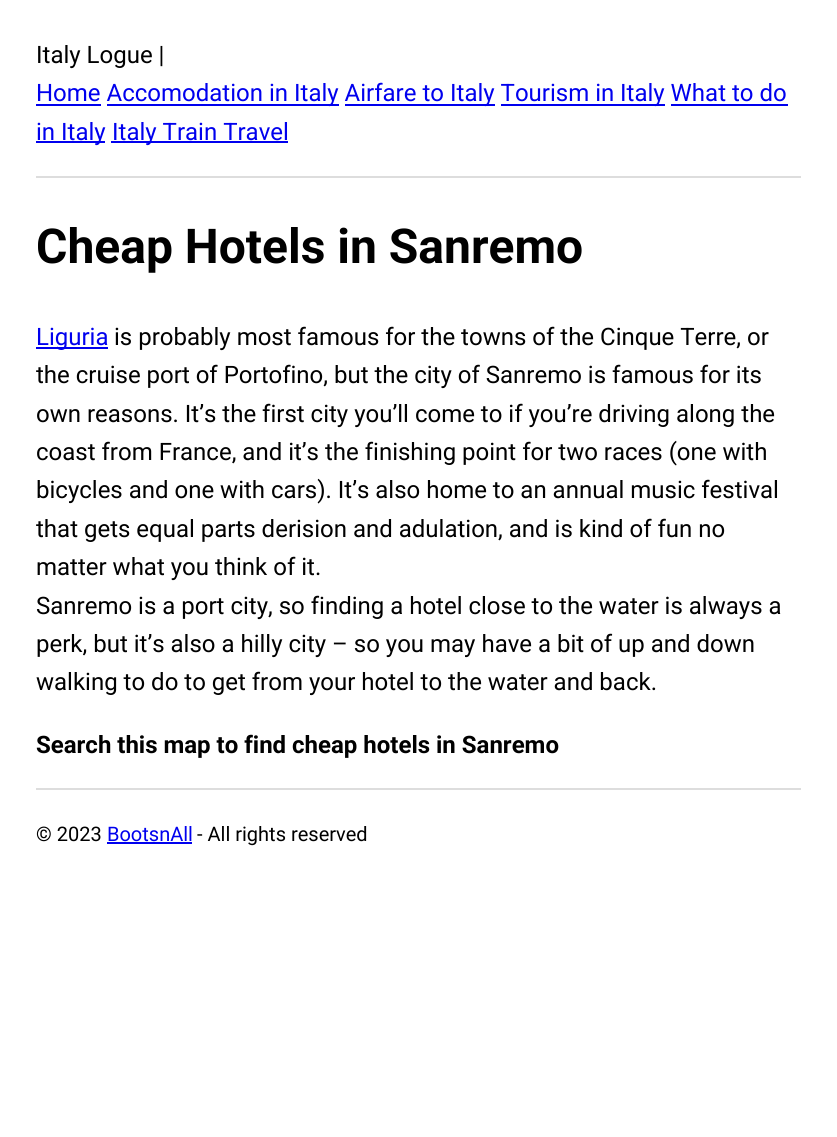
import math
import cairo


def draw(ctx):
	ctx.set_source_rgb(1, 1, 1)
	ctx.paint()
	ctx.select_font_face('Roboto')
	ctx.set_font_size(24)
	ctx.set_source_rgb(0, 0, 0)
	ctx.move_to(36, 63)
	ctx.show_text('Italy Logue |')
	ctx.set_source_rgb(0, 0, 0.933)
	ctx.move_to(36, 101)
	ctx.show_text('Home Accomodation in')
	ctx.rectangle(36, 104, 65, 2)
	ctx.fill()
	ctx.rectangle(107, 104, 232, 2)
	ctx.fill()
	ctx.move_to(294, 101)
	ctx.show_text('Italy Airfare to')
	ctx.rectangle(345, 104, 150, 2)
	ctx.fill()
	ctx.move_to(450, 101)
	ctx.show_text('Italy Tourism in')
	ctx.rectangle(501, 104, 164, 2)
	ctx.fill()
	ctx.move_to(620, 101)
	ctx.show_text('Italy What to do')
	ctx.rectangle(36, 141, 69, 2)
	ctx.fill()
	ctx.move_to(36, 140)
	ctx.show_text('in Italy')
	ctx.rectangle(671, 104, 117, 2)
	ctx.fill()
	ctx.rectangle(111, 141, 177, 2)
	ctx.fill()
	ctx.move_to(112, 140)
	ctx.show_text('Italy Train Travel')
	ctx.set_source_rgb(0.867, 0.867, 0.867)
	ctx.rectangle(36, 176, 765, 2)
	ctx.fill()
	ctx.select_font_face('Roboto', cairo.FONT_SLANT_NORMAL, cairo.FONT_WEIGHT_BOLD)
	ctx.set_font_size(48)
	ctx.set_source_rgb(0, 0, 0)
	ctx.move_to(36, 263)
	ctx.show_text('Cheap Hotels in Sanremo')
	ctx.set_source_rgb(0, 0, 0.933)
	ctx.rectangle(36, 347, 72, 2)
	ctx.fill()
	ctx.select_font_face('Roboto')
	ctx.set_font_size(24)
	ctx.move_to(36, 345)
	ctx.show_text('Liguria')
	ctx.set_source_rgb(0, 0, 0)
	for x, y, s in [
		(114, 345, 'is probably most famous for the towns of the Cinque Terre, or'),
		(36, 383, 'the cruise port of Portofino, but the city of Sanremo is famous for its'),
		(36, 422, 'own reasons. It’s the first city you’ll come to if you’re driving along the'),
		(36, 460, 'coast from France, and it’s the finishing point for two races (one with'),
		(36, 498, 'bicycles and one with cars). It’s also home to an annual music festival'),
		(36, 537, 'that gets equal parts derision and adulation, and is kind of fun no'),
		(36, 575, 'matter what you think of it.'),
		(36, 614, 'Sanremo is a port city, so finding a hotel close to the water is always a'),
		(36, 652, 'perk, but it’s also a hilly city – so you may have a bit of up and down'),
		(36, 690, 'walking to do to get from your hotel to the water and back.'),
	]:
		ctx.move_to(x, y)
		ctx.show_text(s)
	ctx.select_font_face('Roboto', cairo.FONT_SLANT_NORMAL, cairo.FONT_WEIGHT_BOLD)
	ctx.move_to(36, 753)
	ctx.show_text('Search this map to find cheap hotels in Sanremo')
	ctx.set_source_rgb(0.867, 0.867, 0.867)
	ctx.rectangle(36, 788, 765, 2)
	ctx.fill()
	ctx.select_font_face('Roboto')
	ctx.set_font_size(20)
	ctx.set_source_rgb(0, 0, 0)
	ctx.move_to(36, 841)
	ctx.show_text('© 2023')
	ctx.set_source_rgb(0, 0, 0.933)
	ctx.move_to(107, 841)
	ctx.show_text('BootsnAll')
	ctx.rectangle(107, 842, 85, 2)
	ctx.fill()
	ctx.set_source_rgb(0, 0, 0)
	ctx.move_to(197, 841)
	ctx.show_text('- All rights reserved')


surface = cairo.ImageSurface(cairo.FORMAT_RGB24, 837, 1137)
ctx = cairo.Context(surface)
options = cairo.FontOptions()
options.set_hint_metrics(cairo.HINT_METRICS_OFF)
options.set_hint_style(cairo.HINT_STYLE_NONE)
ctx.set_font_options(options)
ctx.set_miter_limit(4)
draw(ctx)
surface.write_to_png('image.png')
